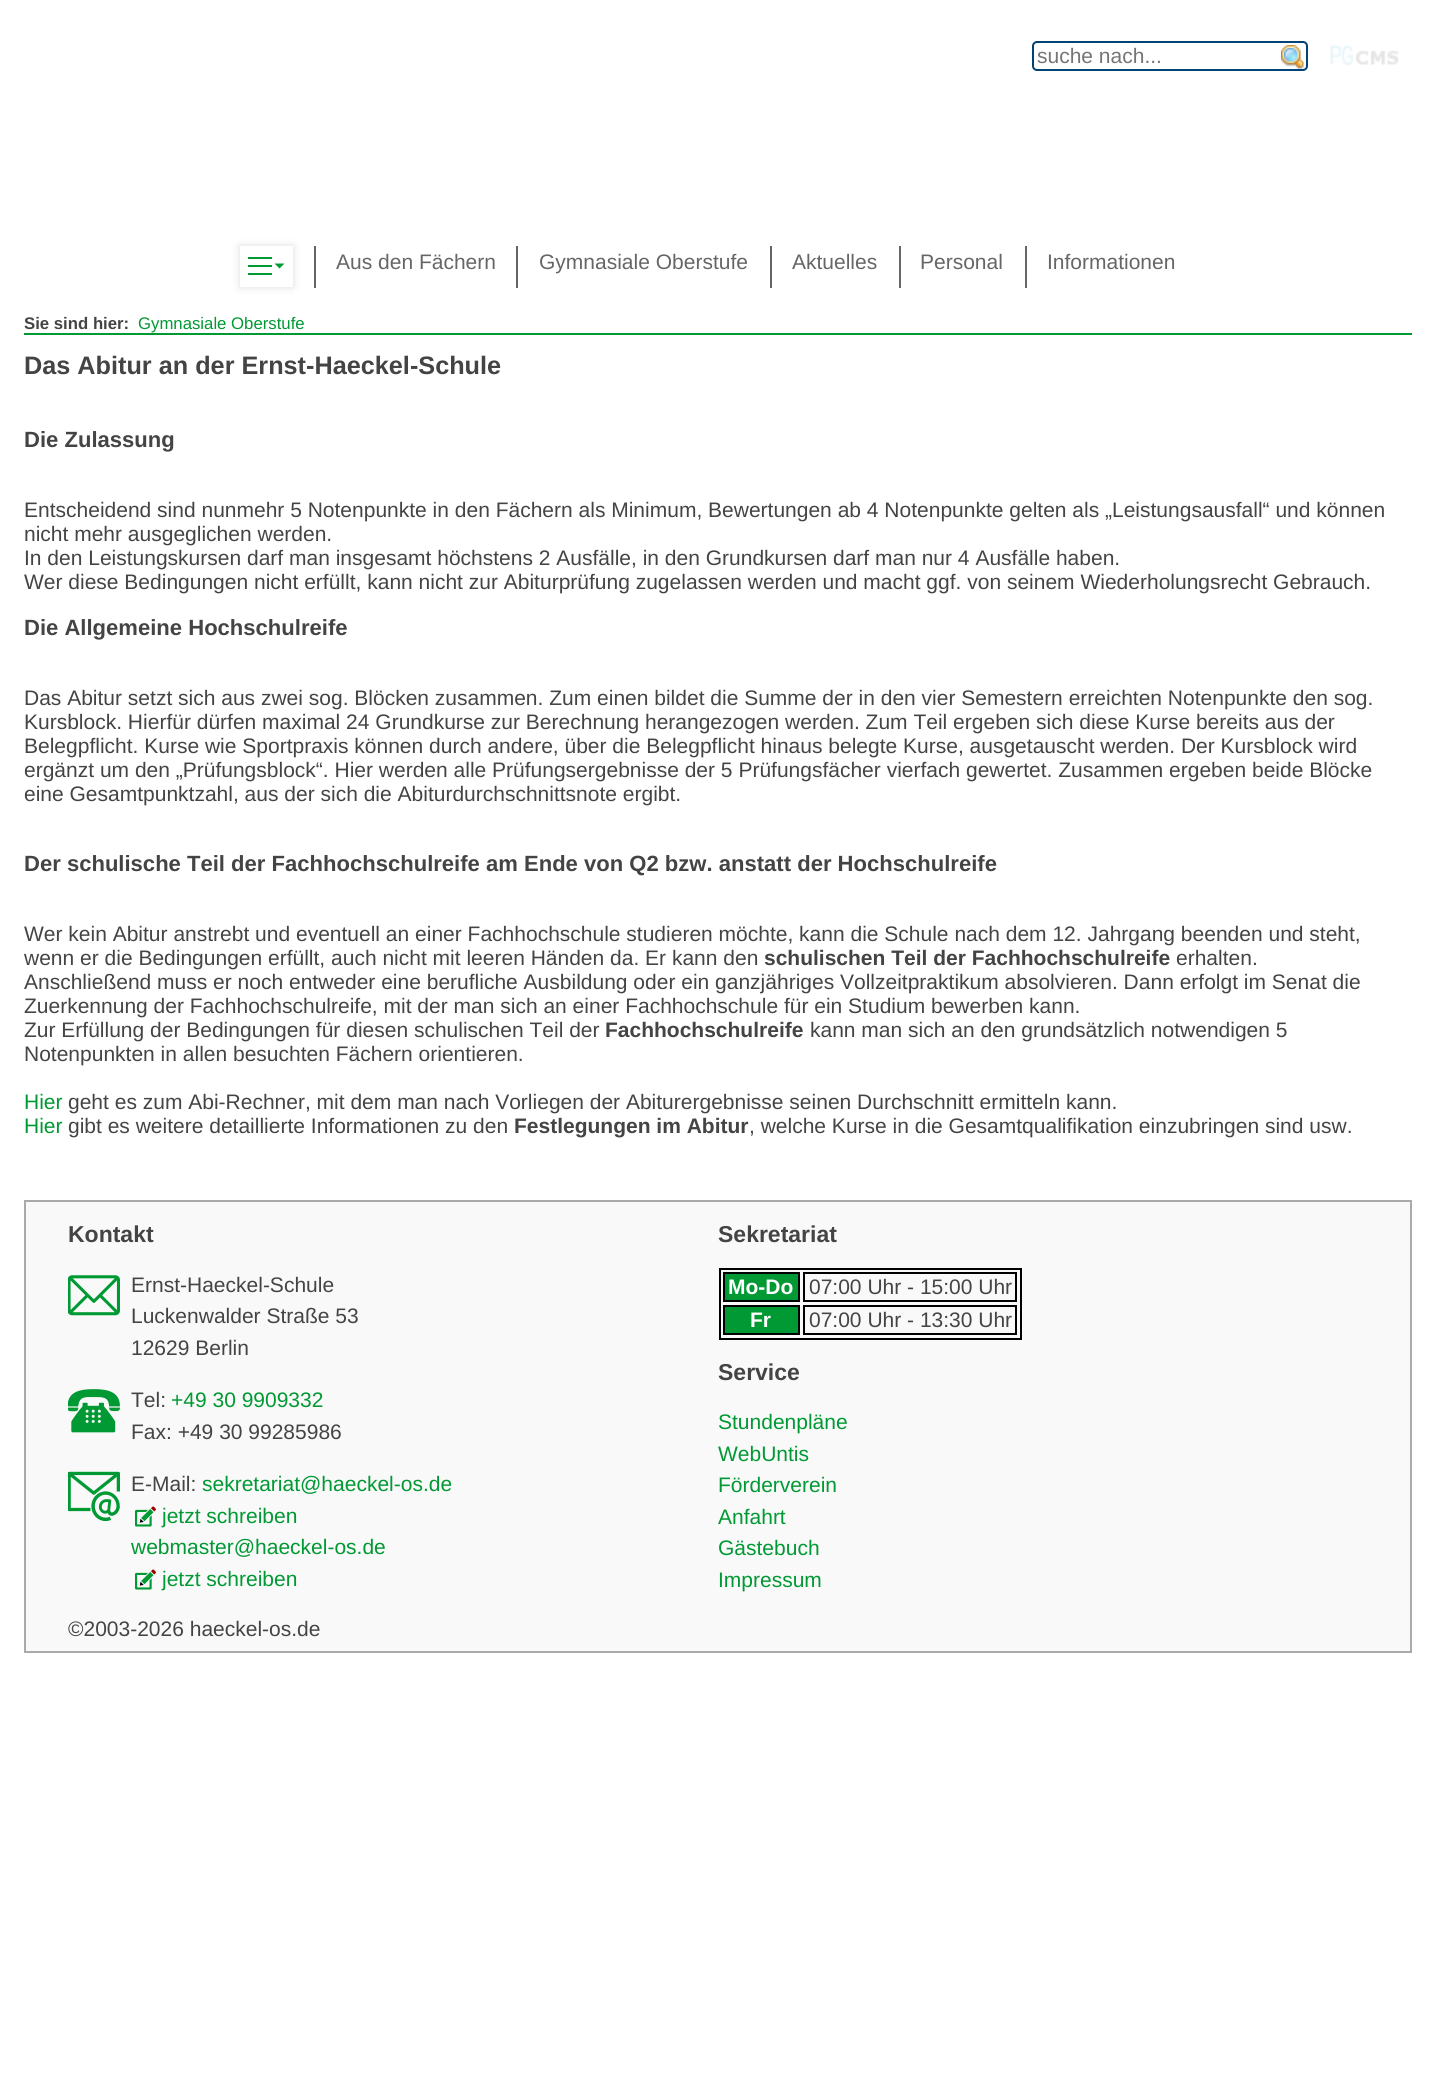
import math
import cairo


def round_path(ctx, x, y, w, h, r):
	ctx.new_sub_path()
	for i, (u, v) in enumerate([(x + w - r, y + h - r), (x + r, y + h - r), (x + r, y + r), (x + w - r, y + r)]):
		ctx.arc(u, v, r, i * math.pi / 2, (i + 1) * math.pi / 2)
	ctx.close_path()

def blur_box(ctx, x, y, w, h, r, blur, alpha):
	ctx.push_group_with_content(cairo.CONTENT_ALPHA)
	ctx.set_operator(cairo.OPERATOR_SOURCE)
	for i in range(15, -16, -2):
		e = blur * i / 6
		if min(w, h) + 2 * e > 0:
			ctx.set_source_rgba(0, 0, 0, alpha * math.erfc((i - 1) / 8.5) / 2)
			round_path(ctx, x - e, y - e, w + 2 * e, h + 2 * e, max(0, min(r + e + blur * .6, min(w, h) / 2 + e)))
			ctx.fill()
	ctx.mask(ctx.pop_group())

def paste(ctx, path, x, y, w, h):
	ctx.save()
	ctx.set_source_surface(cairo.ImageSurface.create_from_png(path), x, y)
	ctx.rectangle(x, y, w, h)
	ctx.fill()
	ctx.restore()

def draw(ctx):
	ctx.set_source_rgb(1, 1, 1)
	ctx.paint()
	round_path(ctx, 1033, 42, 274, 28, 4)
	ctx.set_source_rgb(0, 0.267, 0.467)
	ctx.stroke()
	ctx.select_font_face('Liberation Sans')
	ctx.set_font_size(21)
	ctx.set_source_rgb(0.459, 0.459, 0.459)
	ctx.move_to(1037, 63)
	ctx.show_text('suche nach...')
	paste(ctx, 'media/1.png', 1281, 45, 23, 24)
	ctx.save()
	ctx.set_fill_rule(cairo.FILL_RULE_EVEN_ODD)
	ctx.new_path()
	ctx.move_to(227, 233)
	ctx.line_to(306, 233)
	ctx.line_to(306, 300)
	ctx.line_to(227, 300)
	ctx.close_path()
	ctx.move_to(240, 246)
	ctx.line_to(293, 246)
	ctx.line_to(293, 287)
	ctx.line_to(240, 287)
	ctx.close_path()
	ctx.clip()
	ctx.set_source_rgb(0.867, 0.867, 0.867)
	blur_box(ctx, 240, 246, 53, 41, 0, 4, 1)
	ctx.restore()
	ctx.set_source_rgb(0, 0.6, 0.2)
	ctx.rectangle(248, 257, 24, 2)
	ctx.fill()
	ctx.new_path()
	ctx.move_to(274.5, 263.5)
	ctx.line_to(279.5, 268.5)
	ctx.line_to(284.5, 263.5)
	ctx.close_path()
	ctx.fill()
	ctx.rectangle(248, 273, 24, 2)
	ctx.fill()
	ctx.rectangle(248, 265, 24, 2)
	ctx.fill()
	ctx.rectangle(241, 247, 51, 39)
	ctx.set_source_rgb(1, 1, 1)
	ctx.stroke()
	ctx.set_source_rgb(0.4, 0.4, 0.4)
	ctx.rectangle(314, 246, 2, 42)
	ctx.fill()
	ctx.move_to(336, 269)
	ctx.show_text('Aus den Fächern')
	ctx.rectangle(516, 246, 2, 42)
	ctx.fill()
	ctx.move_to(539, 269)
	ctx.show_text('Gymnasiale Oberstufe')
	ctx.rectangle(770, 246, 2, 42)
	ctx.fill()
	ctx.move_to(792, 269)
	ctx.show_text('Aktuelles')
	ctx.rectangle(899, 246, 2, 42)
	ctx.fill()
	ctx.move_to(920, 269)
	ctx.show_text('Personal')
	ctx.rectangle(1025, 246, 2, 42)
	ctx.fill()
	ctx.move_to(1047, 269)
	ctx.show_text('Informationen')
	ctx.set_source_rgb(0, 0.6, 0.2)
	ctx.rectangle(24, 333, 1388, 2)
	ctx.fill()
	ctx.select_font_face('Liberation Sans', cairo.FONT_SLANT_NORMAL, cairo.FONT_WEIGHT_BOLD)
	ctx.set_font_size(16.75)
	ctx.set_source_rgb(0.267, 0.267, 0.267)
	ctx.move_to(24, 329)
	ctx.show_text('Sie sind hier:')
	ctx.select_font_face('Liberation Sans')
	ctx.set_source_rgb(0, 0.6, 0.2)
	ctx.move_to(138, 329)
	ctx.show_text('Gymnasiale Oberstufe')
	ctx.select_font_face('Liberation Sans', cairo.FONT_SLANT_NORMAL, cairo.FONT_WEIGHT_BOLD)
	ctx.set_font_size(25.25)
	ctx.set_source_rgb(0.267, 0.267, 0.267)
	ctx.move_to(24, 374)
	ctx.show_text('Das Abitur an der Ernst-Haeckel-Schule')
	ctx.set_font_size(22.05)
	ctx.move_to(24, 447)
	ctx.show_text('Die Zulassung')
	ctx.select_font_face('Liberation Sans')
	ctx.set_font_size(21)
	for x, y, s in [
		(24, 517, 'Entscheidend sind nunmehr 5 Notenpunkte in den Fächern als Minimum, Bewertungen ab 4 Notenpunkte gelten als „Leistungsausfall“ und können'),
		(24, 541, 'nicht mehr ausgeglichen werden.'),
		(24, 565, 'In den Leistungskursen darf man insgesamt höchstens 2 Ausfälle, in den Grundkursen darf man nur 4 Ausfälle haben.'),
		(24, 589, 'Wer diese Bedingungen nicht erfüllt, kann nicht zur Abiturprüfung zugelassen werden und macht ggf. von seinem Wiederholungsrecht Gebrauch.'),
	]:
		ctx.move_to(x, y)
		ctx.show_text(s)
	ctx.select_font_face('Liberation Sans', cairo.FONT_SLANT_NORMAL, cairo.FONT_WEIGHT_BOLD)
	ctx.set_font_size(22.05)
	ctx.move_to(24, 635)
	ctx.show_text('Die Allgemeine Hochschulreife')
	ctx.select_font_face('Liberation Sans')
	ctx.set_font_size(21)
	for x, y, s in [
		(24, 705, 'Das Abitur setzt sich aus zwei sog. Blöcken zusammen. Zum einen bildet die Summe der in den vier Semestern erreichten Notenpunkte den sog.'),
		(24, 729, 'Kursblock. Hierfür dürfen maximal 24 Grundkurse zur Berechnung herangezogen werden. Zum Teil ergeben sich diese Kurse bereits aus der'),
		(24, 753, 'Belegpflicht. Kurse wie Sportpraxis können durch andere, über die Belegpflicht hinaus belegte Kurse, ausgetauscht werden. Der Kursblock wird'),
		(24, 777, 'ergänzt um den „Prüfungsblock“. Hier werden alle Prüfungsergebnisse der 5 Prüfungsfächer vierfach gewertet. Zusammen ergeben beide Blöcke'),
		(24, 801, 'eine Gesamtpunktzahl, aus der sich die Abiturdurchschnittsnote ergibt.'),
	]:
		ctx.move_to(x, y)
		ctx.show_text(s)
	ctx.select_font_face('Liberation Sans', cairo.FONT_SLANT_NORMAL, cairo.FONT_WEIGHT_BOLD)
	ctx.set_font_size(22.05)
	ctx.move_to(24, 871)
	ctx.show_text('Der schulische Teil der Fachhochschulreife am Ende von Q2 bzw. anstatt der Hochschulreife')
	ctx.select_font_face('Liberation Sans')
	ctx.set_font_size(21)
	ctx.move_to(24, 941)
	ctx.show_text('Wer kein Abitur anstrebt und eventuell an einer Fachhochschule studieren möchte, kann die Schule nach dem 12. Jahrgang beenden und steht,')
	ctx.move_to(24, 965)
	ctx.show_text('wenn er die Bedingungen erfüllt, auch nicht mit leeren Händen da. Er kann den')
	ctx.select_font_face('Liberation Sans', cairo.FONT_SLANT_NORMAL, cairo.FONT_WEIGHT_BOLD)
	ctx.move_to(764, 965)
	ctx.show_text('schulischen Teil der Fachhochschulreife')
	ctx.select_font_face('Liberation Sans')
	for x, y, s in [
		(1176, 965, 'erhalten.'),
		(24, 989, 'Anschließend muss er noch entweder eine berufliche Ausbildung oder ein ganzjähriges Vollzeitpraktikum absolvieren. Dann erfolgt im Senat die'),
		(24, 1013, 'Zuerkennung der Fachhochschulreife, mit der man sich an einer Fachhochschule für ein Studium bewerben kann.'),
		(24, 1037, 'Zur Erfüllung der Bedingungen für diesen schulischen Teil der'),
	]:
		ctx.move_to(x, y)
		ctx.show_text(s)
	ctx.select_font_face('Liberation Sans', cairo.FONT_SLANT_NORMAL, cairo.FONT_WEIGHT_BOLD)
	ctx.move_to(605, 1037)
	ctx.show_text('Fachhochschulreife')
	ctx.select_font_face('Liberation Sans')
	ctx.move_to(810, 1037)
	ctx.show_text('kann man sich an den grundsätzlich notwendigen 5')
	ctx.move_to(24, 1061)
	ctx.show_text('Notenpunkten in allen besuchten Fächern orientieren.')
	ctx.set_source_rgb(0, 0.6, 0.2)
	ctx.move_to(24, 1109)
	ctx.show_text('Hier')
	ctx.set_source_rgb(0.267, 0.267, 0.267)
	ctx.move_to(68, 1109)
	ctx.show_text('geht es zum Abi-Rechner, mit dem man nach Vorliegen der Abiturergebnisse seinen Durchschnitt ermitteln kann.')
	ctx.set_source_rgb(0, 0.6, 0.2)
	ctx.move_to(24, 1133)
	ctx.show_text('Hier')
	ctx.set_source_rgb(0.267, 0.267, 0.267)
	ctx.move_to(68, 1133)
	ctx.show_text('gibt es weitere detaillierte Informationen zu den')
	ctx.select_font_face('Liberation Sans', cairo.FONT_SLANT_NORMAL, cairo.FONT_WEIGHT_BOLD)
	ctx.move_to(514, 1133)
	ctx.show_text('Festlegungen im Abitur')
	ctx.select_font_face('Liberation Sans')
	ctx.move_to(749, 1133)
	ctx.show_text(', welche Kurse in die Gesamtqualifikation einzubringen sind usw.')
	ctx.set_source_rgb(0.973, 0.973, 0.973)
	ctx.rectangle(25, 1201, 1386, 451)
	ctx.fill_preserve()
	ctx.set_source_rgb(0.667, 0.667, 0.667)
	ctx.stroke()
	paste(ctx, 'media/2.png', 1330, 45, 69, 21)
	ctx.select_font_face('Liberation Sans', cairo.FONT_SLANT_NORMAL, cairo.FONT_WEIGHT_BOLD)
	ctx.set_font_size(23)
	ctx.set_source_rgb(0.267, 0.267, 0.267)
	ctx.move_to(68, 1242)
	ctx.show_text('Kontakt')
	paste(ctx, 'media/3.png', 68, 1275, 52, 41)
	ctx.select_font_face('Liberation Sans')
	ctx.set_font_size(21)
	for x, y, s in [
		(131, 1292, 'Ernst-Haeckel-Schule'),
		(131, 1323, 'Luckenwalder Straße 53'),
		(131, 1355, '12629 Berlin'),
	]:
		ctx.move_to(x, y)
		ctx.show_text(s)
	paste(ctx, 'media/4.png', 68, 1389, 52, 44)
	ctx.move_to(131, 1407)
	ctx.show_text('Tel:')
	ctx.set_source_rgb(0, 0.6, 0.2)
	ctx.move_to(171, 1407)
	ctx.show_text('+49 30 9909332')
	ctx.set_source_rgb(0.267, 0.267, 0.267)
	ctx.move_to(131, 1439)
	ctx.show_text('Fax: +49 30 99285986')
	paste(ctx, 'media/5.png', 68, 1471, 52, 50)
	ctx.move_to(131, 1491)
	ctx.show_text('E-Mail:')
	ctx.set_source_rgb(0, 0.6, 0.2)
	ctx.move_to(202, 1491)
	ctx.show_text('sekretariat@haeckel-os.de')
	paste(ctx, 'media/6.png', 135, 1506, 21, 21)
	ctx.move_to(162, 1523)
	ctx.show_text('jetzt schreiben')
	ctx.move_to(131, 1554)
	ctx.show_text('webmaster@haeckel-os.de')
	paste(ctx, 'media/6.png', 135, 1569, 21, 21)
	ctx.move_to(162, 1586)
	ctx.show_text('jetzt schreiben')
	ctx.select_font_face('Liberation Sans', cairo.FONT_SLANT_NORMAL, cairo.FONT_WEIGHT_BOLD)
	ctx.set_font_size(23)
	ctx.set_source_rgb(0.267, 0.267, 0.267)
	ctx.move_to(718, 1242)
	ctx.show_text('Sekretariat')
	ctx.rectangle(720, 1269, 301, 70)
	ctx.set_source_rgb(0, 0, 0)
	ctx.stroke()
	ctx.set_source_rgb(0, 0.6, 0.2)
	ctx.rectangle(724, 1273, 75, 28)
	ctx.fill_preserve()
	ctx.set_source_rgb(0, 0, 0)
	ctx.stroke()
	ctx.set_font_size(21)
	ctx.set_source_rgb(1, 1, 1)
	ctx.move_to(728, 1294)
	ctx.show_text('Mo-Do')
	ctx.rectangle(804, 1273, 212, 28)
	ctx.set_source_rgb(0, 0, 0)
	ctx.stroke()
	ctx.select_font_face('Liberation Sans')
	ctx.set_source_rgb(0.267, 0.267, 0.267)
	ctx.move_to(809, 1294)
	ctx.show_text('07:00 Uhr - 15:00 Uhr')
	ctx.set_source_rgb(0, 0.6, 0.2)
	ctx.rectangle(724, 1306, 75, 28)
	ctx.fill_preserve()
	ctx.set_source_rgb(0, 0, 0)
	ctx.stroke()
	ctx.select_font_face('Liberation Sans', cairo.FONT_SLANT_NORMAL, cairo.FONT_WEIGHT_BOLD)
	ctx.set_source_rgb(1, 1, 1)
	ctx.move_to(750, 1327)
	ctx.show_text('Fr')
	ctx.rectangle(804, 1306, 212, 28)
	ctx.set_source_rgb(0, 0, 0)
	ctx.stroke()
	ctx.select_font_face('Liberation Sans')
	ctx.set_source_rgb(0.267, 0.267, 0.267)
	ctx.move_to(809, 1327)
	ctx.show_text('07:00 Uhr - 13:30 Uhr')
	ctx.select_font_face('Liberation Sans', cairo.FONT_SLANT_NORMAL, cairo.FONT_WEIGHT_BOLD)
	ctx.set_font_size(23)
	ctx.move_to(718, 1380)
	ctx.show_text('Service')
	ctx.select_font_face('Liberation Sans')
	ctx.set_font_size(21)
	ctx.set_source_rgb(0, 0.6, 0.2)
	for x, y, s in [
		(718, 1429, 'Stundenpläne'),
		(718, 1461, 'WebUntis'),
		(718, 1492, 'Förderverein'),
		(718, 1524, 'Anfahrt'),
		(718, 1555, 'Gästebuch'),
		(718, 1587, 'Impressum'),
	]:
		ctx.move_to(x, y)
		ctx.show_text(s)
	ctx.set_source_rgb(0.267, 0.267, 0.267)
	ctx.move_to(68, 1636)
	ctx.show_text('©2003-2026 haeckel-os.de')


surface = cairo.ImageSurface(cairo.FORMAT_RGB24, 1435, 2096)
ctx = cairo.Context(surface)
options = cairo.FontOptions()
options.set_hint_metrics(cairo.HINT_METRICS_OFF)
options.set_hint_style(cairo.HINT_STYLE_NONE)
ctx.set_font_options(options)
ctx.set_miter_limit(4)
draw(ctx)
surface.write_to_png('image.png')
